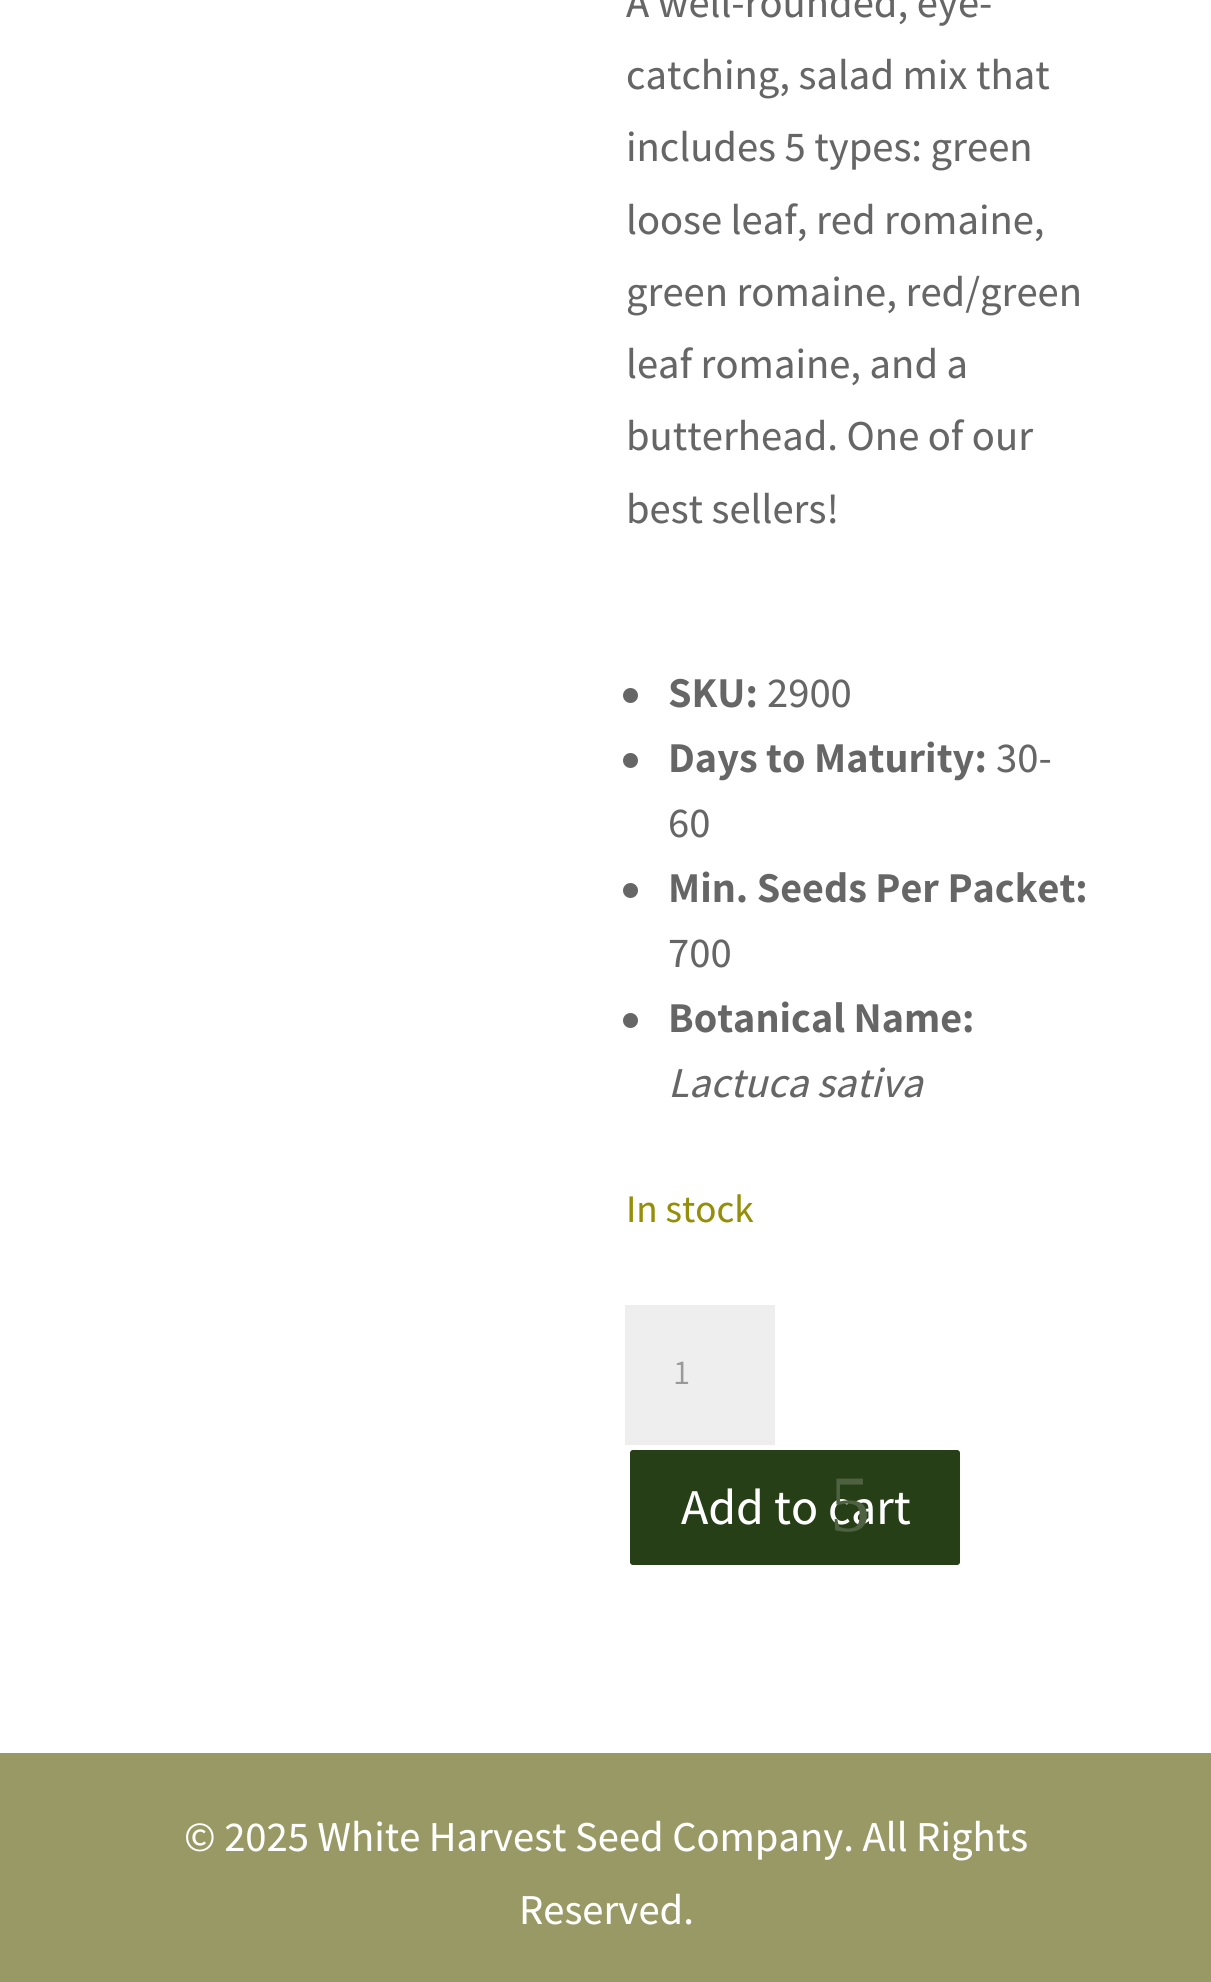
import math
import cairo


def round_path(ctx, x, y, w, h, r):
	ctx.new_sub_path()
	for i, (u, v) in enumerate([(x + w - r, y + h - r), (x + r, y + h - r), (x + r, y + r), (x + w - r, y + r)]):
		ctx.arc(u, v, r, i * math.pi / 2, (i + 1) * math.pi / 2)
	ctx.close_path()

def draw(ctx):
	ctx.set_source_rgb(1, 1, 1)
	ctx.paint()
	ctx.select_font_face('Assistant ExtraLight')
	ctx.set_font_size(42.5)
	ctx.set_source_rgb(0.4, 0.4, 0.4)
	for x, y, s in [
		(626, 17, 'A well-rounded, eye-'),
		(626, 89, 'catching, salad mix that'),
		(626, 161, 'includes 5 types: green'),
		(626, 234, 'loose leaf, red romaine,'),
		(626, 306, 'green romaine, red/green'),
		(626, 378, 'leaf romaine, and a'),
		(626, 450, 'butterhead. One of our'),
		(626, 523, 'best sellers!'),
	]:
		ctx.move_to(x, y)
		ctx.show_text(s)
	ctx.new_path()
	ctx.arc(630.5, 695.5, 7.5, 0, 2 * math.pi)
	ctx.fill()
	ctx.select_font_face('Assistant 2 ExtraLight')
	ctx.move_to(668, 707)
	ctx.show_text('SKU:')
	ctx.select_font_face('Assistant ExtraLight')
	ctx.move_to(767, 707)
	ctx.show_text('2900')
	ctx.new_path()
	ctx.arc(630.5, 760.5, 7.5, 0, 2 * math.pi)
	ctx.fill()
	ctx.select_font_face('Assistant 2 ExtraLight')
	ctx.move_to(668, 772)
	ctx.show_text('Days to Maturity:')
	ctx.select_font_face('Assistant ExtraLight')
	ctx.move_to(996, 772)
	ctx.show_text('30-')
	ctx.move_to(668, 837)
	ctx.show_text('60')
	ctx.new_path()
	ctx.arc(630.5, 890.5, 7.5, 0, 2 * math.pi)
	ctx.fill()
	ctx.select_font_face('Assistant 2 ExtraLight')
	ctx.move_to(668, 902)
	ctx.show_text('Min. Seeds Per Packet:')
	ctx.select_font_face('Assistant ExtraLight')
	ctx.move_to(668, 967)
	ctx.show_text('700')
	ctx.new_path()
	ctx.arc(630.5, 1020.5, 7.5, 0, 2 * math.pi)
	ctx.fill()
	ctx.select_font_face('Assistant 2 ExtraLight')
	ctx.move_to(668, 1032)
	ctx.show_text('Botanical Name:')
	ctx.select_font_face('Assistant ExtraLight', cairo.FONT_SLANT_ITALIC)
	ctx.move_to(668, 1097)
	ctx.show_text('Lactuca sativa')
	ctx.select_font_face('Assistant ExtraLight')
	ctx.set_font_size(39)
	ctx.set_source_rgb(0.584, 0.557, 0.035)
	ctx.move_to(626, 1222)
	ctx.show_text('In stock')
	ctx.set_source_rgb(0.933, 0.933, 0.933)
	ctx.rectangle(625, 1305, 150, 140)
	ctx.fill()
	ctx.select_font_face('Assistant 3 ExtraLight')
	ctx.set_font_size(35)
	ctx.set_source_rgb(0.6, 0.6, 0.6)
	ctx.move_to(674, 1384)
	ctx.show_text('1')
	ctx.set_source_rgb(0.149, 0.247, 0.09)
	round_path(ctx, 627.5, 1447.5, 335, 120, 5.5)
	ctx.fill_preserve()
	ctx.set_source_rgb(1, 1, 1)
	ctx.set_line_width(5)
	ctx.stroke()
	ctx.select_font_face('Assistant ExtraLight')
	ctx.set_font_size(50)
	ctx.move_to(681, 1524)
	ctx.show_text('Add to cart')
	ctx.select_font_face('Liberation Serif')
	ctx.set_font_size(80)
	ctx.set_source_rgb(0.306, 0.384, 0.255)
	ctx.move_to(830, 1531)
	ctx.show_text('5')
	ctx.set_source_rgb(0.6, 0.6, 0.4)
	ctx.rectangle(0, 1753, 1211, 229)
	ctx.fill()
	ctx.select_font_face('Assistant ExtraLight')
	ctx.set_font_size(42.5)
	ctx.set_source_rgb(1, 1, 1)
	ctx.move_to(184, 1851)
	ctx.show_text('© 2025 White Harvest Seed Company. All Rights')
	ctx.move_to(519, 1924)
	ctx.show_text('Reserved.')


surface = cairo.ImageSurface(cairo.FORMAT_RGB24, 1211, 1982)
ctx = cairo.Context(surface)
options = cairo.FontOptions()
options.set_hint_metrics(cairo.HINT_METRICS_OFF)
options.set_hint_style(cairo.HINT_STYLE_NONE)
ctx.set_font_options(options)
ctx.set_miter_limit(4)
draw(ctx)
surface.write_to_png('image.png')
